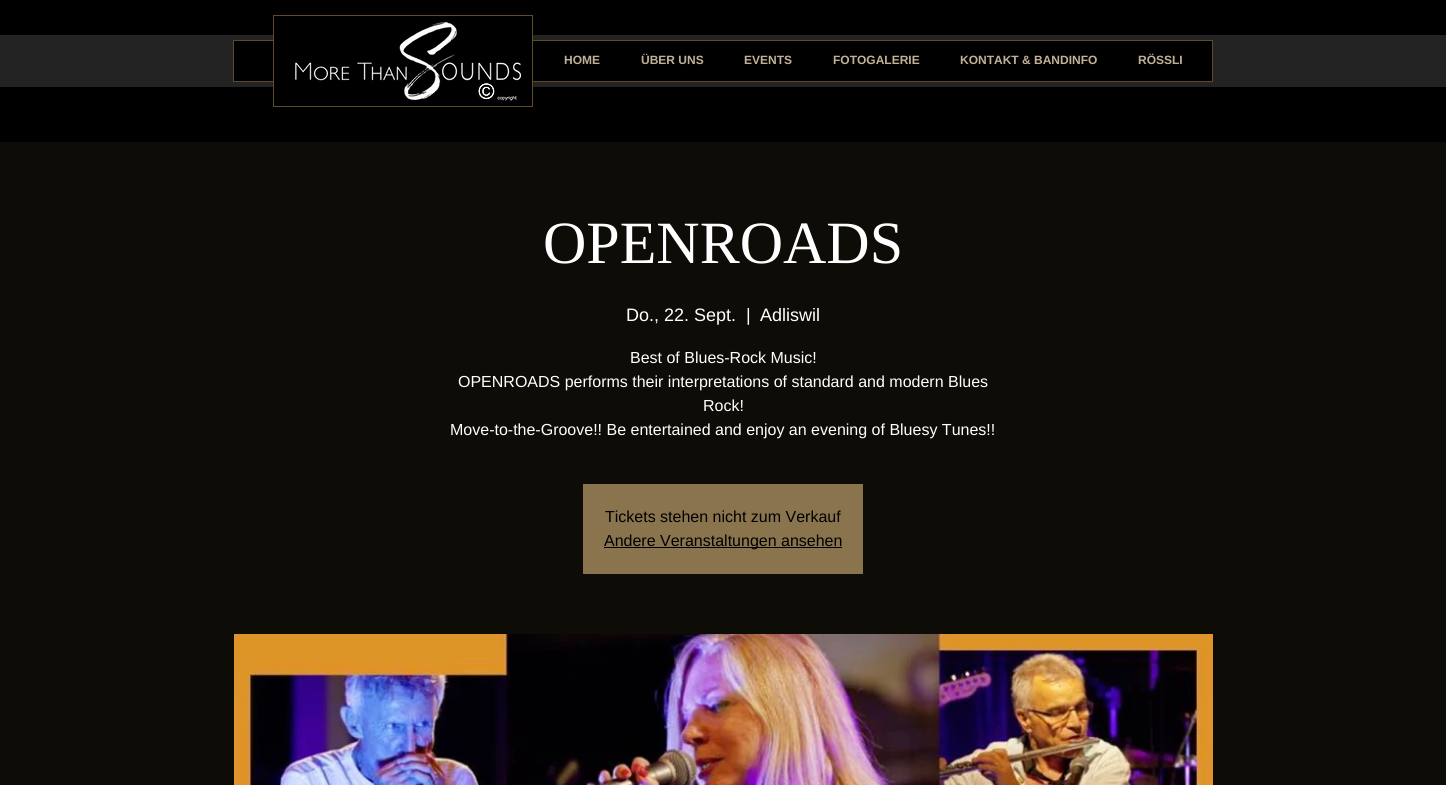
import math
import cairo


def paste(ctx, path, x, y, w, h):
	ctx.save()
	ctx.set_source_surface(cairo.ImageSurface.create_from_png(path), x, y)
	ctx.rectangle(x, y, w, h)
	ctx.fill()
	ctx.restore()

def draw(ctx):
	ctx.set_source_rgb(0, 0, 0)
	ctx.paint()
	ctx.set_source_rgb(0.141, 0.137, 0.137)
	ctx.rectangle(0, 35, 1446, 52)
	ctx.fill()
	ctx.set_source_rgb(0, 0, 0)
	ctx.rectangle(233.5, 40.5, 979, 41)
	ctx.fill_preserve()
	ctx.set_source_rgb(0.365, 0.294, 0.169)
	ctx.set_line_width(1)
	ctx.stroke()
	ctx.set_source_rgb(0, 0, 0)
	ctx.rectangle(274, 35, 258, 52)
	ctx.fill()
	ctx.rectangle(273.5, 15.5, 259, 91)
	ctx.set_source_rgb(0.365, 0.294, 0.169)
	ctx.stroke()
	paste(ctx, 'media/1.png', 295, 22, 226, 78)
	paste(ctx, 'media/2.png', 478, 82, 40, 20)
	ctx.select_font_face('Liberation Sans', cairo.FONT_SLANT_NORMAL, cairo.FONT_WEIGHT_BOLD)
	ctx.set_font_size(12)
	ctx.set_source_rgb(0.757, 0.698, 0.592)
	for x, y, s in [
		(564, 64, 'HOME'),
		(641, 64, 'ÜBER UNS'),
		(744, 64, 'EVENTS'),
		(833, 64, 'FOTOGALERIE'),
		(960, 64, 'KONTAKT & BANDINFO'),
		(1138, 64, 'RÖSSLI'),
	]:
		ctx.move_to(x, y)
		ctx.show_text(s)
	ctx.set_source_rgb(0.055, 0.047, 0.031)
	ctx.rectangle(0, 142, 1446, 643)
	ctx.fill()
	ctx.select_font_face('Liberation Serif')
	ctx.set_font_size(60)
	ctx.set_source_rgb(1, 1, 1)
	ctx.move_to(543, 263)
	ctx.show_text('OPENROADS')
	ctx.select_font_face('Liberation Sans')
	ctx.set_font_size(18)
	for x, y, s in [
		(626, 321, 'Do., 22. Sept.'),
		(746, 321, '|'),
		(760, 321, 'Adliswil'),
	]:
		ctx.move_to(x, y)
		ctx.show_text(s)
	ctx.set_font_size(16)
	for x, y, s in [
		(630, 363, 'Best of Blues-Rock Music!'),
		(458, 387, 'OPENROADS performs their interpretations of standard and modern Blues'),
		(703, 411, 'Rock!'),
		(450, 435, 'Move-to-the-Groove!! Be entertained and enjoy an evening of Bluesy Tunes!!'),
	]:
		ctx.move_to(x, y)
		ctx.show_text(s)
	ctx.set_source_rgb(0.537, 0.455, 0.302)
	ctx.rectangle(583, 484, 280, 90)
	ctx.fill()
	ctx.set_source_rgb(0, 0, 0)
	ctx.move_to(605, 522)
	ctx.show_text('Tickets stehen nicht zum Verkauf')
	ctx.rectangle(604, 547, 238, 1)
	ctx.fill()
	ctx.move_to(604, 546)
	ctx.show_text('Andere Veranstaltungen ansehen')
	paste(ctx, 'media/3.png', 234, 634, 979, 151)


surface = cairo.ImageSurface(cairo.FORMAT_RGB24, 1446, 785)
ctx = cairo.Context(surface)
options = cairo.FontOptions()
options.set_hint_metrics(cairo.HINT_METRICS_OFF)
options.set_hint_style(cairo.HINT_STYLE_NONE)
ctx.set_font_options(options)
ctx.set_miter_limit(4)
draw(ctx)
surface.write_to_png('image.png')
